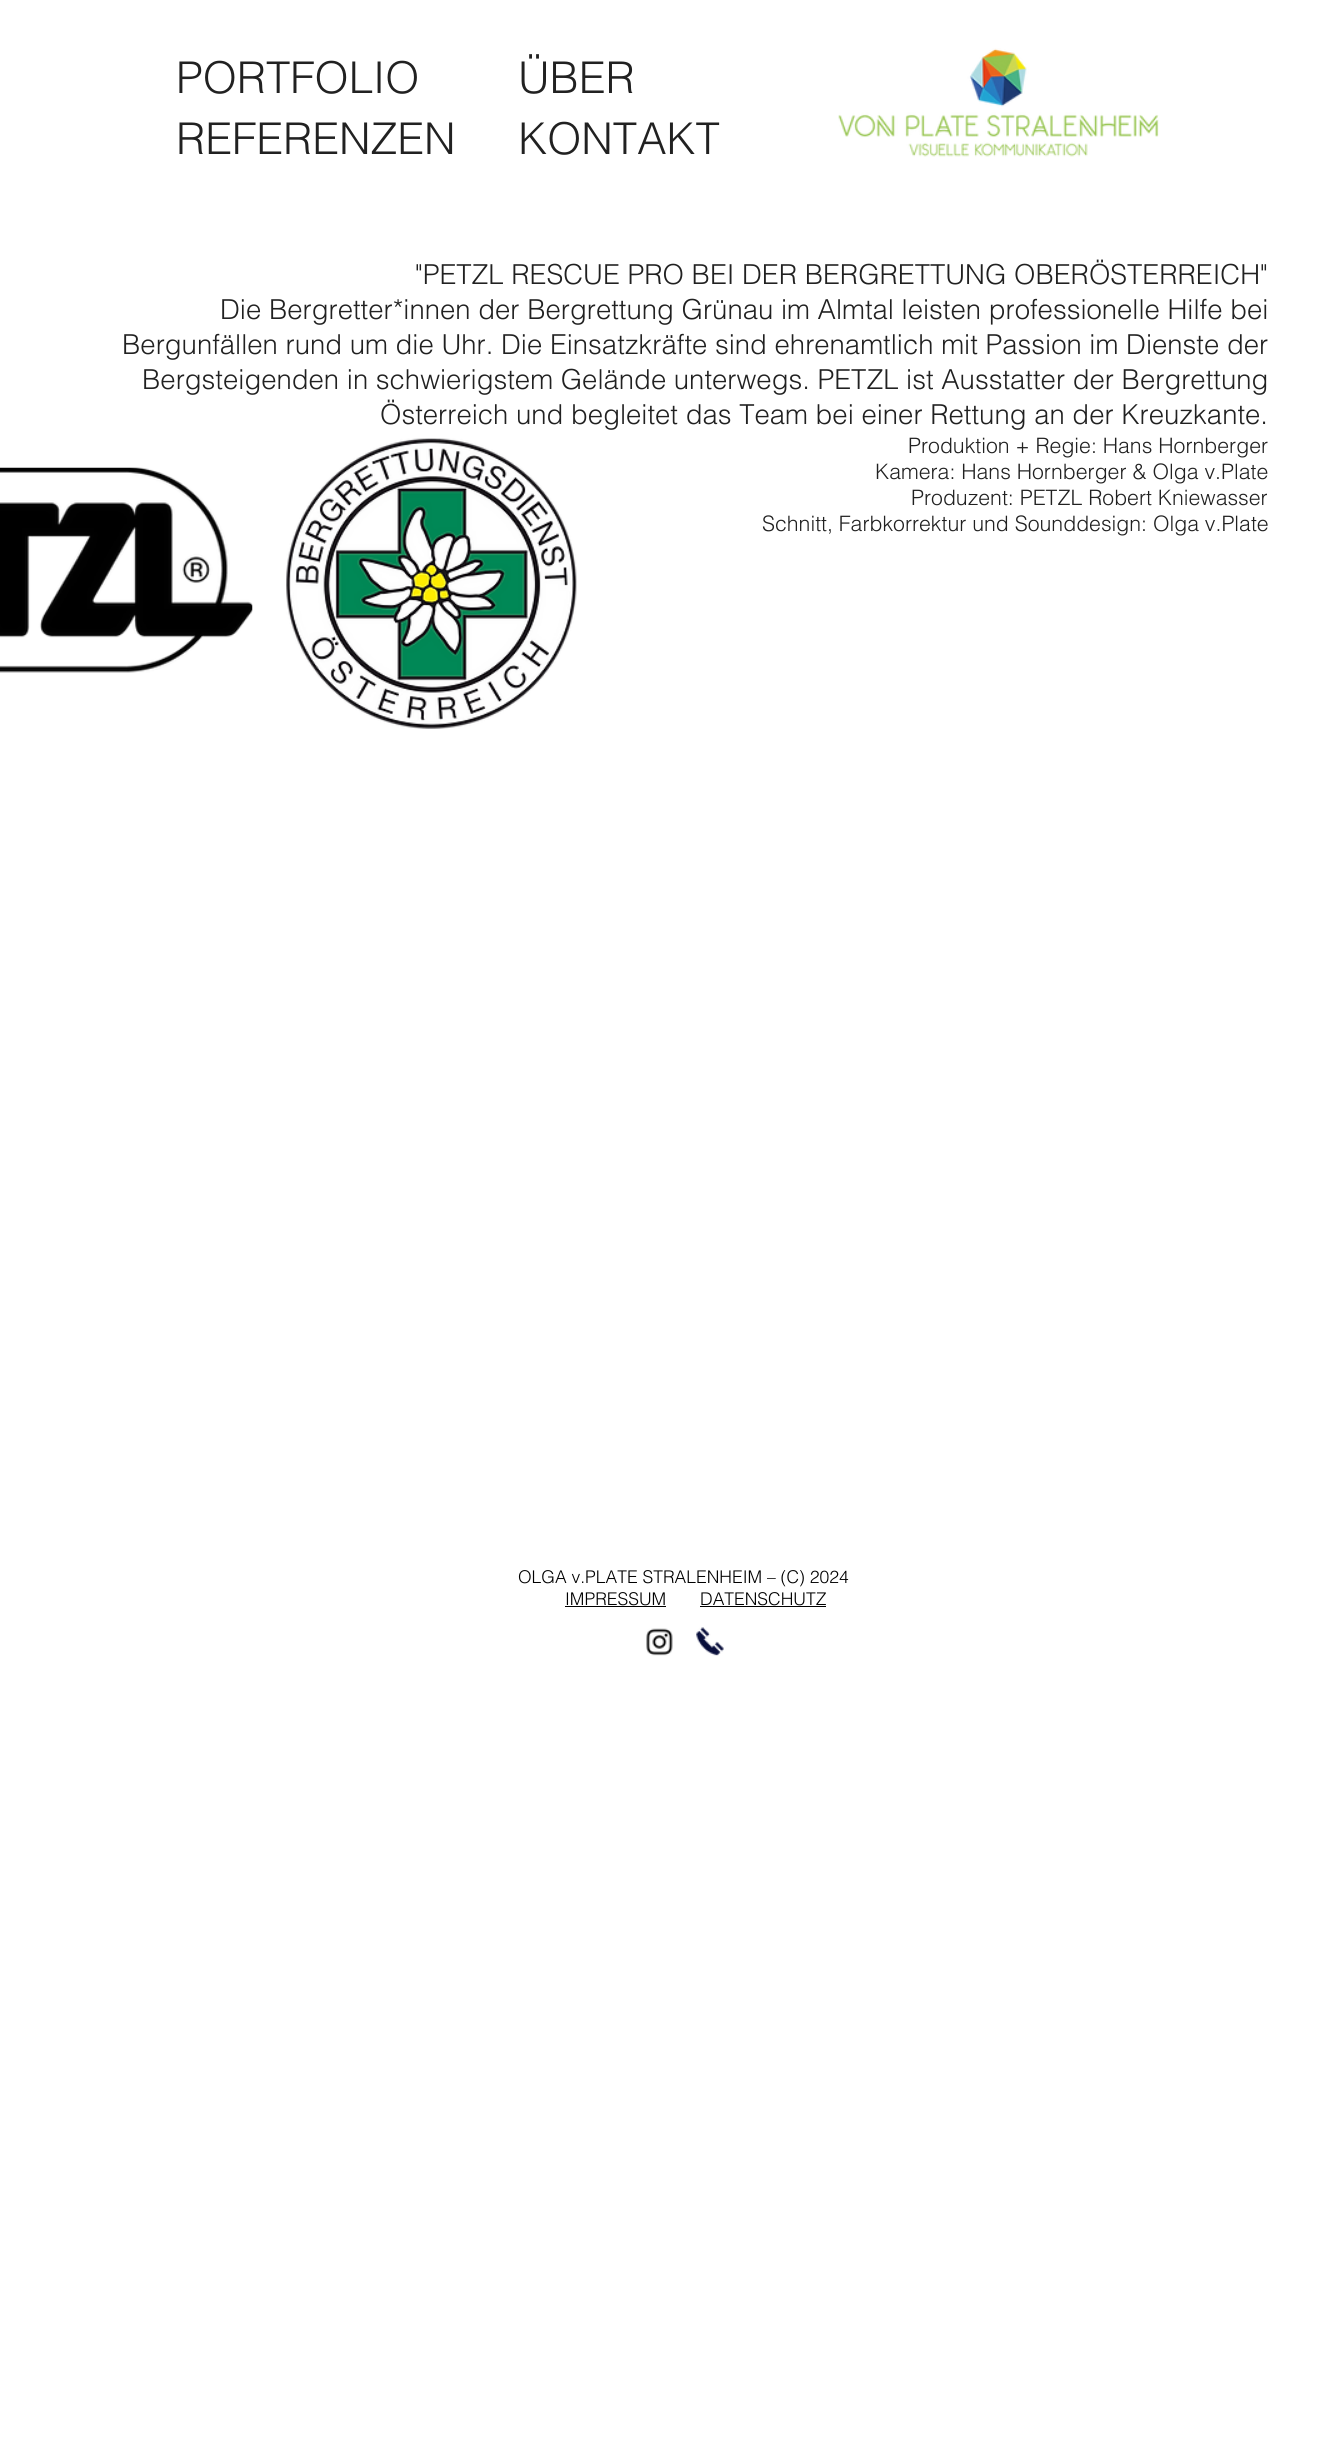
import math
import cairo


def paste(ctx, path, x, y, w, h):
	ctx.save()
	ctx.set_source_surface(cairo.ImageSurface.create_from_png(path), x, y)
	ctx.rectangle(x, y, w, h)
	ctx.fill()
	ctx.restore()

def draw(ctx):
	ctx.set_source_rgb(1, 1, 1)
	ctx.paint()
	ctx.select_font_face('helvetica Light')
	ctx.set_font_size(43.75)
	ctx.set_source_rgb(0.129, 0.129, 0.129)
	ctx.move_to(176, 93)
	ctx.show_text('PORTFOLIO')
	ctx.move_to(518, 93)
	ctx.show_text('ÜBER')
	paste(ctx, 'media/1.png', 838, 48, 321, 109)
	ctx.move_to(176, 154)
	ctx.show_text('REFERENZEN')
	ctx.move_to(518, 154)
	ctx.show_text('KONTAKT')
	ctx.set_font_size(27.5)
	for x, y, s in [
		(415, 284, '"PETZL RESCUE PRO BEI DER BERGRETTUNG OBERÖSTERREICH"'),
		(220, 319, 'Die Bergretter*innen der Bergrettung Grünau im Almtal leisten professionelle Hilfe bei'),
		(122, 354, 'Bergunfällen rund um die Uhr. Die Einsatzkräfte sind ehrenamtlich mit Passion im Dienste der'),
		(142, 389, 'Bergsteigenden in schwierigstem Gelände unterwegs. PETZL ist Ausstatter der Bergrettung'),
		(380, 424, 'Österreich und begleitet das Team bei einer Rettung an der Kreuzkante.'),
	]:
		ctx.move_to(x, y)
		ctx.show_text(s)
	ctx.set_font_size(21.25)
	for x, y, s in [
		(908, 453, 'Produktion + Regie: Hans Hornberger'),
		(875, 479, 'Kamera: Hans Hornberger & Olga v.Plate'),
		(911, 505, 'Produzent: PETZL Robert Kniewasser'),
		(762, 531, 'Schnitt, Farbkorrektur und Sounddesign: Olga v.Plate'),
	]:
		ctx.move_to(x, y)
		ctx.show_text(s)
	paste(ctx, 'media/2.png', 0, 467, 253, 206)
	paste(ctx, 'media/3.png', 286, 438, 291, 291)
	ctx.set_font_size(17.5)
	ctx.set_source_rgb(0, 0, 0)
	ctx.move_to(518, 1583)
	ctx.show_text('OLGA v.PLATE STRALENHEIM – (C) 2024')
	ctx.move_to(565, 1605)
	ctx.show_text('IMPRESSUM')
	ctx.rectangle(565, 1606, 101, 1)
	ctx.fill()
	ctx.move_to(700, 1605)
	ctx.show_text('DATENSCHUTZ')
	ctx.rectangle(700, 1606, 126, 1)
	ctx.fill()
	paste(ctx, 'media/4.png', 646, 1628, 27, 28)
	paste(ctx, 'media/5.png', 696, 1627, 28, 29)


surface = cairo.ImageSurface(cairo.FORMAT_RGB24, 1343, 2461)
ctx = cairo.Context(surface)
options = cairo.FontOptions()
options.set_hint_metrics(cairo.HINT_METRICS_OFF)
options.set_hint_style(cairo.HINT_STYLE_NONE)
ctx.set_font_options(options)
ctx.set_miter_limit(4)
draw(ctx)
surface.write_to_png('image.png')
